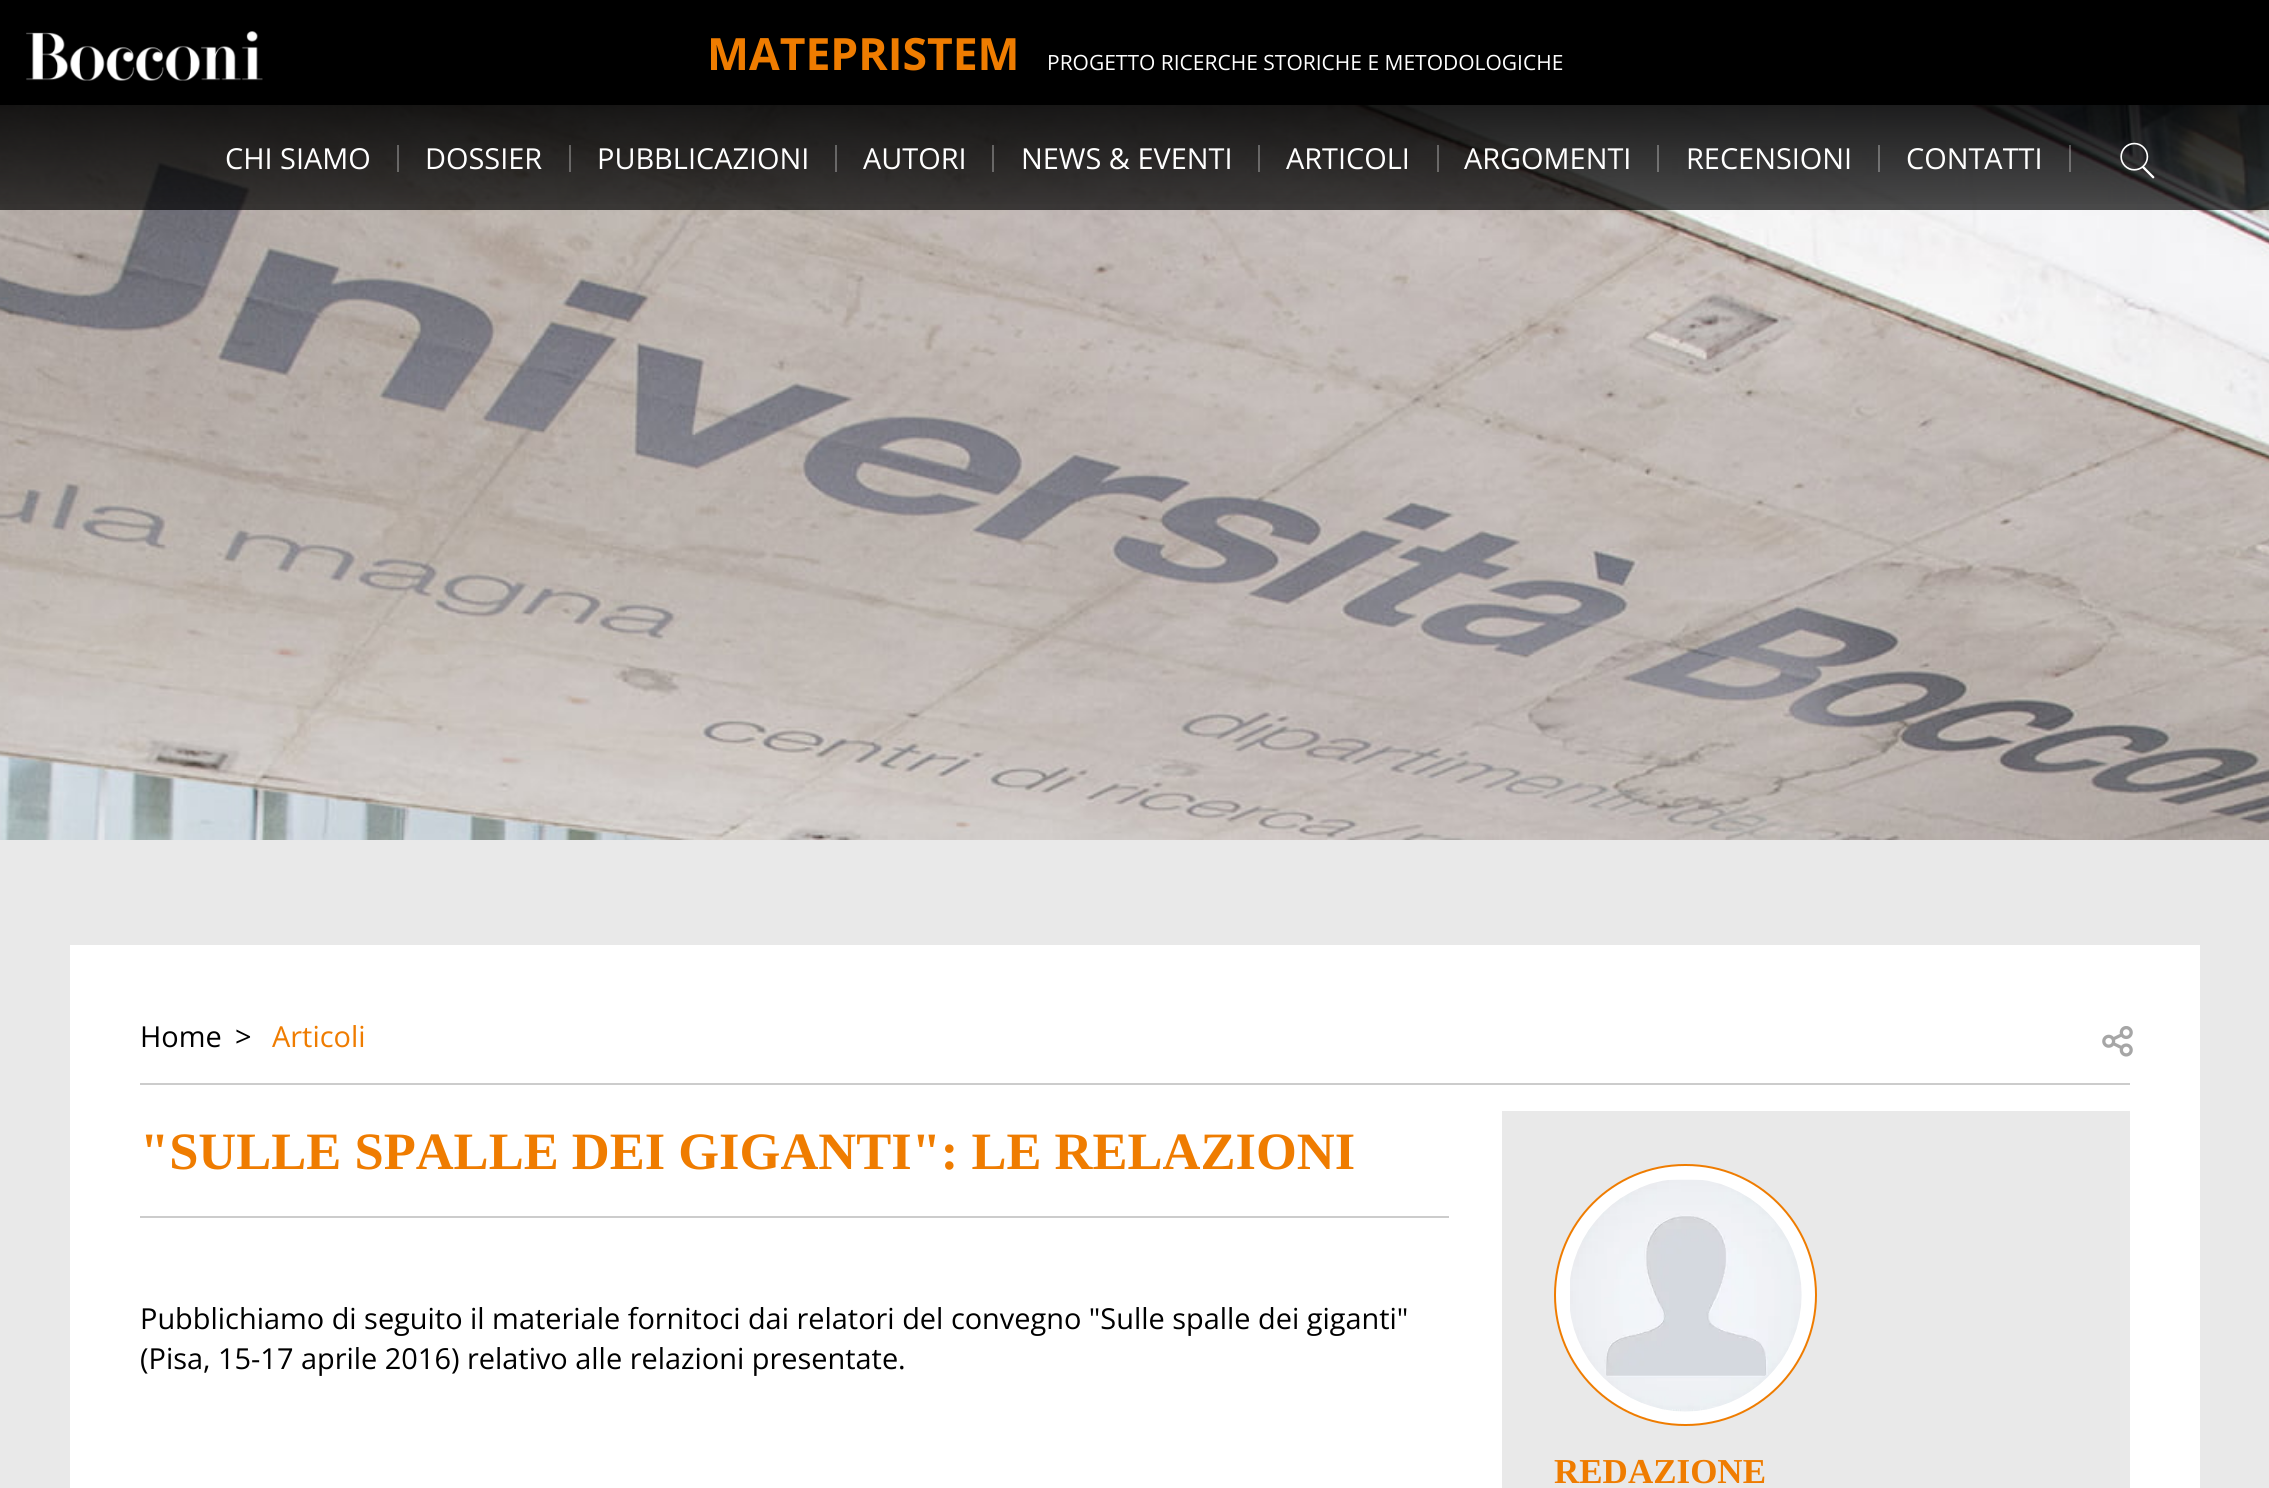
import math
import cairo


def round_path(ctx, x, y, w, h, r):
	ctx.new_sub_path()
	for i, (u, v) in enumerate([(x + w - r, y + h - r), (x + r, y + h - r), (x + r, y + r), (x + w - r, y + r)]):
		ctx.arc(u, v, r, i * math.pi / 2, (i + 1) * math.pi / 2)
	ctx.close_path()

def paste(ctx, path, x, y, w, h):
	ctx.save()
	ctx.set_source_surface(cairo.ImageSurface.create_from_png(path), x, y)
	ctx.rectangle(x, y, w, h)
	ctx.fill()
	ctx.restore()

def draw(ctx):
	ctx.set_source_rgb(0.914, 0.914, 0.914)
	ctx.paint()
	ctx.set_source_rgb(0, 0, 0)
	ctx.rectangle(0, 0, 2269, 105)
	ctx.fill()
	paste(ctx, 'media/1.png', 26, 31, 237, 50)
	ctx.select_font_face('Open Sans', cairo.FONT_SLANT_NORMAL, cairo.FONT_WEIGHT_BOLD)
	ctx.set_font_size(44.5)
	ctx.set_source_rgb(0.937, 0.486, 0)
	ctx.move_to(707, 70)
	ctx.show_text('MATEPRISTEM')
	ctx.select_font_face('Open Sans')
	ctx.set_font_size(21)
	ctx.set_source_rgb(1, 1, 1)
	ctx.move_to(1047, 70)
	ctx.show_text('PROGETTO RICERCHE STORICHE E METODOLOGICHE')
	paste(ctx, 'media/3.png', 0, 105, 2269, 735)
	ctx.set_source_rgba(0, 0, 0, 0.7)
	ctx.rectangle(0, 105, 2269, 105)
	ctx.fill()
	gradient = cairo.LinearGradient(1135, 105, 1135, 210)
	gradient.add_color_stop_rgba(0, 0, 0, 0, 0.6)
	gradient.add_color_stop_rgba(1, 0, 0, 0, 0)
	ctx.set_source(gradient)
	ctx.rectangle(0, 105, 2269, 99)
	ctx.fill()
	ctx.set_source_rgba(1, 1, 1, 0.3)
	ctx.rectangle(397, 145, 2, 27)
	ctx.fill()
	ctx.set_font_size(28.9)
	ctx.set_source_rgb(1, 1, 1)
	ctx.move_to(225, 169)
	ctx.show_text('CHI SIAMO')
	ctx.set_source_rgba(1, 1, 1, 0.3)
	ctx.rectangle(569, 145, 2, 27)
	ctx.fill()
	ctx.set_source_rgb(1, 1, 1)
	ctx.move_to(425, 169)
	ctx.show_text('DOSSIER')
	ctx.set_source_rgba(1, 1, 1, 0.3)
	ctx.rectangle(835, 145, 2, 27)
	ctx.fill()
	ctx.set_source_rgb(1, 1, 1)
	ctx.move_to(597, 169)
	ctx.show_text('PUBBLICAZIONI')
	ctx.set_source_rgba(1, 1, 1, 0.3)
	ctx.rectangle(992, 145, 2, 27)
	ctx.fill()
	ctx.set_source_rgb(1, 1, 1)
	ctx.move_to(863, 169)
	ctx.show_text('AUTORI')
	ctx.set_source_rgba(1, 1, 1, 0.3)
	ctx.rectangle(1258, 145, 2, 27)
	ctx.fill()
	ctx.set_source_rgb(1, 1, 1)
	ctx.move_to(1021, 169)
	ctx.show_text('NEWS & EVENTI')
	ctx.set_source_rgba(1, 1, 1, 0.3)
	ctx.rectangle(1437, 145, 2, 27)
	ctx.fill()
	ctx.set_source_rgb(1, 1, 1)
	ctx.move_to(1286, 169)
	ctx.show_text('ARTICOLI')
	ctx.set_source_rgba(1, 1, 1, 0.3)
	ctx.rectangle(1657, 145, 2, 27)
	ctx.fill()
	ctx.set_source_rgb(1, 1, 1)
	ctx.move_to(1464, 169)
	ctx.show_text('ARGOMENTI')
	ctx.set_source_rgba(1, 1, 1, 0.3)
	ctx.rectangle(1878, 145, 2, 27)
	ctx.fill()
	ctx.set_source_rgb(1, 1, 1)
	ctx.move_to(1686, 169)
	ctx.show_text('RECENSIONI')
	ctx.set_source_rgba(1, 1, 1, 0.3)
	ctx.rectangle(2069, 145, 2, 27)
	ctx.fill()
	ctx.set_source_rgb(1, 1, 1)
	ctx.move_to(1906, 169)
	ctx.show_text('CONTATTI')
	paste(ctx, 'media/2.png', 2120, 142, 35, 37)
	ctx.rectangle(70, 945, 2130, 543)
	ctx.fill()
	ctx.set_source_rgb(0.8, 0.8, 0.8)
	ctx.rectangle(140, 1083, 1990, 2)
	ctx.fill()
	ctx.set_source_rgb(0, 0, 0)
	ctx.move_to(140, 1047)
	ctx.show_text('Home')
	ctx.move_to(235, 1047)
	ctx.show_text('>')
	ctx.set_source_rgb(0.937, 0.486, 0)
	ctx.move_to(272, 1047)
	ctx.show_text('Articoli')
	paste(ctx, 'media/4.png', 2102, 1026, 31, 31)
	ctx.set_source_rgb(0.8, 0.8, 0.8)
	ctx.rectangle(140, 1216, 1309, 2)
	ctx.fill()
	ctx.select_font_face('Liberation Serif', cairo.FONT_SLANT_NORMAL, cairo.FONT_WEIGHT_BOLD)
	ctx.set_font_size(52.5)
	ctx.set_source_rgb(0.937, 0.486, 0)
	ctx.move_to(140, 1169)
	ctx.show_text('"SULLE SPALLE DEI GIGANTI": LE RELAZIONI')
	ctx.select_font_face('Open Sans')
	ctx.set_font_size(28.9)
	ctx.set_source_rgb(0, 0, 0)
	ctx.move_to(140, 1329)
	ctx.show_text('Pubblichiamo di seguito il materiale fornitoci dai relatori del convegno "Sulle spalle dei giganti"')
	ctx.move_to(140, 1369)
	ctx.show_text('(Pisa, 15-17 aprile 2016) relativo alle relazioni presentate.')
	ctx.set_source_rgb(0.914, 0.914, 0.914)
	ctx.rectangle(1502, 1111, 628, 377)
	ctx.fill()
	ctx.set_source_rgb(1, 1, 1)
	round_path(ctx, 1555, 1165, 261, 260, 130)
	ctx.fill_preserve()
	ctx.set_source_rgb(0.937, 0.486, 0)
	ctx.stroke()
	paste(ctx, 'media/5.png', 1570, 1179, 232, 233)
	ctx.select_font_face('Liberation Serif', cairo.FONT_SLANT_NORMAL, cairo.FONT_WEIGHT_BOLD)
	ctx.set_font_size(35)
	ctx.move_to(1554, 1483)
	ctx.show_text('REDAZIONE')


surface = cairo.ImageSurface(cairo.FORMAT_RGB24, 2269, 1488)
ctx = cairo.Context(surface)
options = cairo.FontOptions()
options.set_hint_metrics(cairo.HINT_METRICS_OFF)
options.set_hint_style(cairo.HINT_STYLE_NONE)
ctx.set_font_options(options)
ctx.set_miter_limit(4)
draw(ctx)
surface.write_to_png('image.png')
